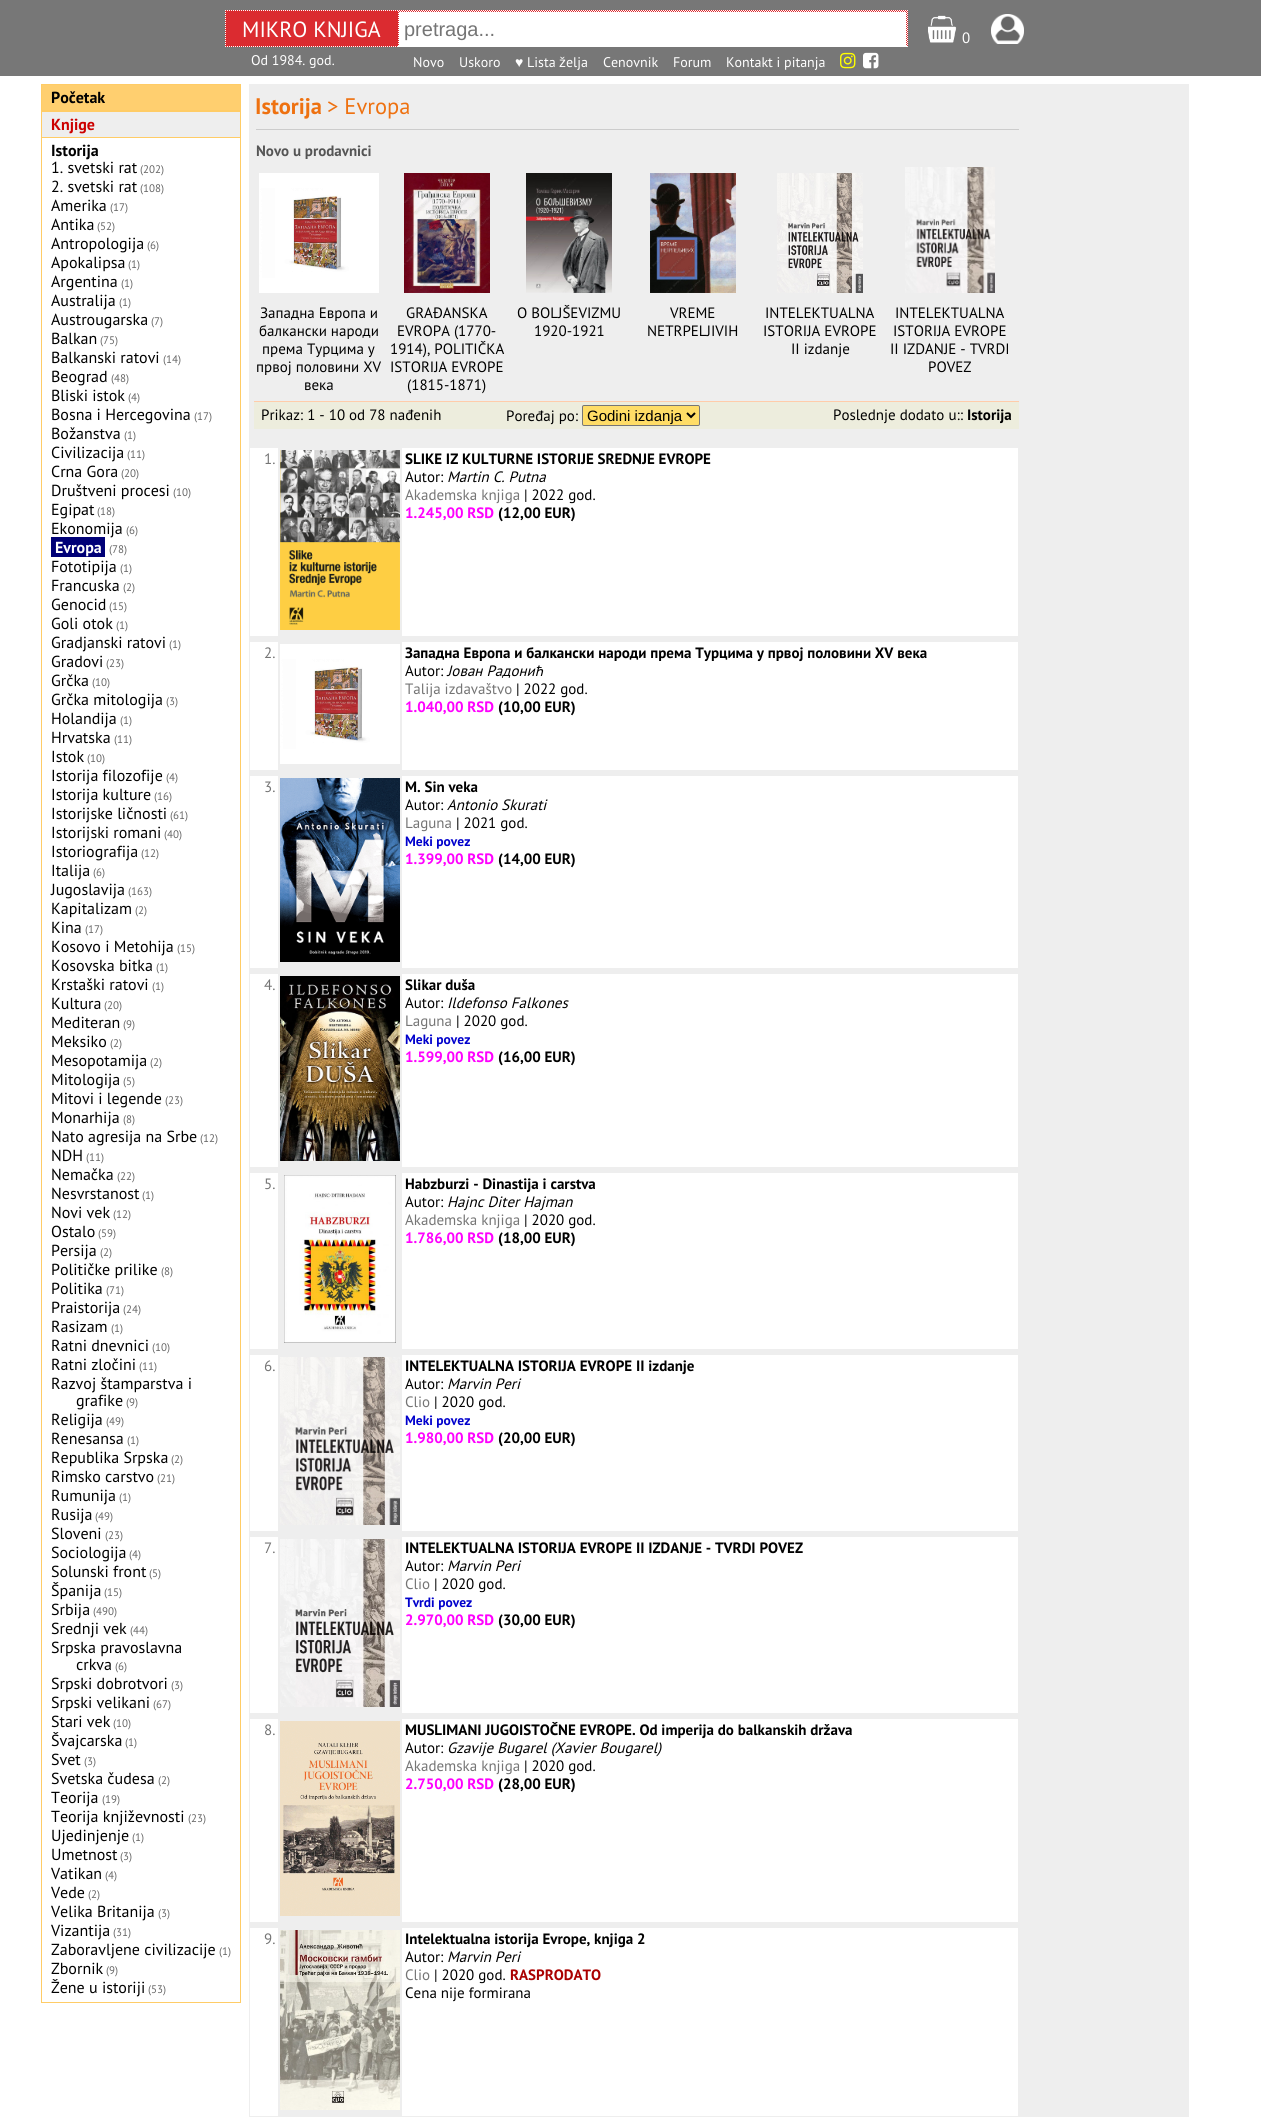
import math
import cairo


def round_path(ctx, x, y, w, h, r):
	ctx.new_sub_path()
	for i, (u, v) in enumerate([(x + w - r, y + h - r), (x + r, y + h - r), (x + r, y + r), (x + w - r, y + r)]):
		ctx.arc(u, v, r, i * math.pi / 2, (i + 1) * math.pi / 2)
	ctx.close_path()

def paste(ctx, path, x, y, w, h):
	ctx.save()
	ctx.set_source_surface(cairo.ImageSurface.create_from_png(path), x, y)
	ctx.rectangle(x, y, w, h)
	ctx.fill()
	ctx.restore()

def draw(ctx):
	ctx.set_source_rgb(1, 1, 1)
	ctx.paint()
	ctx.set_source_rgb(0.467, 0.467, 0.467)
	ctx.rectangle(0, 0, 1261, 76)
	ctx.fill()
	ctx.set_source_rgb(0.859, 0.169, 0.188)
	ctx.rectangle(225, 10, 683, 37)
	ctx.fill()
	ctx.new_path()
	ctx.move_to(225, 10.5)
	ctx.line_to(908, 10.5)
	ctx.set_source_rgb(1, 1, 1)
	ctx.set_line_width(1)
	ctx.set_dash([1, 1])
	ctx.stroke()
	ctx.new_path()
	ctx.move_to(907.5, 10)
	ctx.line_to(907.5, 47)
	ctx.stroke()
	ctx.new_path()
	ctx.move_to(225, 46.5)
	ctx.line_to(908, 46.5)
	ctx.stroke()
	ctx.new_path()
	ctx.move_to(225.5, 10)
	ctx.line_to(225.5, 47)
	ctx.stroke()
	ctx.select_font_face('PT Sans')
	ctx.set_font_size(22)
	ctx.move_to(242, 37)
	ctx.show_text('MIKRO KNJIGA')
	ctx.new_path()
	ctx.move_to(398, 11.5)
	ctx.line_to(907, 11.5)
	ctx.stroke()
	ctx.new_path()
	ctx.move_to(906.5, 11)
	ctx.line_to(906.5, 47)
	ctx.stroke()
	ctx.new_path()
	ctx.move_to(398, 46.5)
	ctx.line_to(907, 46.5)
	ctx.stroke()
	ctx.new_path()
	ctx.move_to(398.5, 11)
	ctx.line_to(398.5, 47)
	ctx.stroke()
	ctx.rectangle(399, 12, 507, 34)
	ctx.fill()
	ctx.select_font_face('Liberation Sans')
	ctx.set_font_size(20)
	ctx.set_source_rgb(0.459, 0.459, 0.459)
	ctx.move_to(404, 36)
	ctx.show_text('pretraga...')
	paste(ctx, 'media/1.png', 928, 15, 29, 28)
	ctx.select_font_face('PT Sans')
	ctx.set_font_size(15)
	ctx.set_source_rgb(1, 1, 1)
	ctx.move_to(962, 43)
	ctx.show_text('0')
	paste(ctx, 'media/2.png', 991, 14, 33, 30)
	ctx.set_font_size(14)
	for x, y, s in [
		(251, 65, 'Od 1984. god.'),
		(413, 67, 'Novo'),
		(459, 67, 'Uskoro'),
	]:
		ctx.move_to(x, y)
		ctx.show_text(s)
	ctx.select_font_face('Liberation Sans')
	ctx.move_to(515, 67)
	ctx.show_text('♥')
	ctx.select_font_face('PT Sans')
	ctx.move_to(527, 67)
	ctx.show_text('Lista')
	ctx.select_font_face('Liberation Sans')
	ctx.move_to(559, 67)
	ctx.show_text('ž')
	ctx.select_font_face('PT Sans')
	for x, y, s in [
		(566, 67, 'elja'),
		(603, 67, 'Cenovnik'),
		(673, 67, 'Forum'),
		(726, 67, 'Kontakt i pitanja'),
	]:
		ctx.move_to(x, y)
		ctx.show_text(s)
	paste(ctx, 'media/3.png', 840, 52, 16, 17)
	paste(ctx, 'media/4.png', 863, 52, 16, 17)
	ctx.set_source_rgb(1, 0.8, 0.4)
	ctx.rectangle(41, 84, 200, 1919)
	ctx.fill()
	ctx.set_source_rgb(1, 0.812, 0.435)
	ctx.rectangle(42, 85, 198, 25)
	ctx.fill()
	ctx.select_font_face('PT Sans', cairo.FONT_SLANT_NORMAL, cairo.FONT_WEIGHT_BOLD)
	ctx.set_font_size(16)
	ctx.set_source_rgb(0, 0, 0)
	ctx.move_to(51, 103)
	ctx.show_text('Početak')
	ctx.set_source_rgb(0.933, 0.933, 0.933)
	ctx.rectangle(42, 112, 198, 25)
	ctx.fill()
	ctx.set_source_rgb(0.8, 0, 0)
	ctx.move_to(51, 130)
	ctx.show_text('Knjige')
	ctx.set_source_rgb(1, 1, 1)
	ctx.rectangle(42, 138, 198, 1864)
	ctx.fill()
	ctx.set_source_rgb(0, 0, 0)
	ctx.move_to(51, 156)
	ctx.show_text('Istorija')
	ctx.select_font_face('PT Sans')
	ctx.move_to(51, 173)
	ctx.show_text('1. svetski rat')
	ctx.set_font_size(11)
	ctx.set_source_rgb(0.4, 0.4, 0.4)
	ctx.move_to(140, 173)
	ctx.show_text('(202)')
	ctx.set_font_size(16)
	ctx.set_source_rgb(0, 0, 0)
	ctx.move_to(51, 192)
	ctx.show_text('2. svetski rat')
	ctx.set_font_size(11)
	ctx.set_source_rgb(0.4, 0.4, 0.4)
	ctx.move_to(140, 192)
	ctx.show_text('(108)')
	ctx.set_font_size(16)
	ctx.set_source_rgb(0, 0, 0)
	ctx.move_to(51, 211)
	ctx.show_text('Amerika')
	ctx.set_font_size(11)
	ctx.set_source_rgb(0.4, 0.4, 0.4)
	ctx.move_to(110, 211)
	ctx.show_text('(17)')
	ctx.set_font_size(16)
	ctx.set_source_rgb(0, 0, 0)
	ctx.move_to(51, 230)
	ctx.show_text('Antika')
	ctx.set_font_size(11)
	ctx.set_source_rgb(0.4, 0.4, 0.4)
	ctx.move_to(97, 230)
	ctx.show_text('(52)')
	ctx.set_font_size(16)
	ctx.set_source_rgb(0, 0, 0)
	ctx.move_to(51, 249)
	ctx.show_text('Antropologija')
	ctx.set_font_size(11)
	ctx.set_source_rgb(0.4, 0.4, 0.4)
	ctx.move_to(147, 249)
	ctx.show_text('(6)')
	ctx.set_font_size(16)
	ctx.set_source_rgb(0, 0, 0)
	ctx.move_to(51, 268)
	ctx.show_text('Apokalipsa')
	ctx.set_font_size(11)
	ctx.set_source_rgb(0.4, 0.4, 0.4)
	ctx.move_to(128, 268)
	ctx.show_text('(1)')
	ctx.set_font_size(16)
	ctx.set_source_rgb(0, 0, 0)
	ctx.move_to(51, 287)
	ctx.show_text('Argentina')
	ctx.set_font_size(11)
	ctx.set_source_rgb(0.4, 0.4, 0.4)
	ctx.move_to(121, 287)
	ctx.show_text('(1)')
	ctx.set_font_size(16)
	ctx.set_source_rgb(0, 0, 0)
	ctx.move_to(51, 306)
	ctx.show_text('Australija')
	ctx.set_font_size(11)
	ctx.set_source_rgb(0.4, 0.4, 0.4)
	ctx.move_to(119, 306)
	ctx.show_text('(1)')
	ctx.set_font_size(16)
	ctx.set_source_rgb(0, 0, 0)
	ctx.move_to(51, 325)
	ctx.show_text('Austrougarska')
	ctx.set_font_size(11)
	ctx.set_source_rgb(0.4, 0.4, 0.4)
	ctx.move_to(151, 325)
	ctx.show_text('(7)')
	ctx.set_font_size(16)
	ctx.set_source_rgb(0, 0, 0)
	ctx.move_to(51, 344)
	ctx.show_text('Balkan')
	ctx.set_font_size(11)
	ctx.set_source_rgb(0.4, 0.4, 0.4)
	ctx.move_to(100, 344)
	ctx.show_text('(75)')
	ctx.set_font_size(16)
	ctx.set_source_rgb(0, 0, 0)
	ctx.move_to(51, 363)
	ctx.show_text('Balkanski ratovi')
	ctx.set_font_size(11)
	ctx.set_source_rgb(0.4, 0.4, 0.4)
	ctx.move_to(163, 363)
	ctx.show_text('(14)')
	ctx.set_font_size(16)
	ctx.set_source_rgb(0, 0, 0)
	ctx.move_to(51, 382)
	ctx.show_text('Beograd')
	ctx.set_font_size(11)
	ctx.set_source_rgb(0.4, 0.4, 0.4)
	ctx.move_to(111, 382)
	ctx.show_text('(48)')
	ctx.set_font_size(16)
	ctx.set_source_rgb(0, 0, 0)
	ctx.move_to(51, 401)
	ctx.show_text('Bliski istok')
	ctx.set_font_size(11)
	ctx.set_source_rgb(0.4, 0.4, 0.4)
	ctx.move_to(128, 401)
	ctx.show_text('(4)')
	ctx.set_font_size(16)
	ctx.set_source_rgb(0, 0, 0)
	ctx.move_to(51, 420)
	ctx.show_text('Bosna i Hercegovina')
	ctx.set_font_size(11)
	ctx.set_source_rgb(0.4, 0.4, 0.4)
	ctx.move_to(194, 420)
	ctx.show_text('(17)')
	ctx.set_font_size(16)
	ctx.set_source_rgb(0, 0, 0)
	ctx.move_to(51, 439)
	ctx.show_text('Božanstva')
	ctx.set_font_size(11)
	ctx.set_source_rgb(0.4, 0.4, 0.4)
	ctx.move_to(124, 439)
	ctx.show_text('(1)')
	ctx.set_font_size(16)
	ctx.set_source_rgb(0, 0, 0)
	ctx.move_to(51, 458)
	ctx.show_text('Civilizacija')
	ctx.set_font_size(11)
	ctx.set_source_rgb(0.4, 0.4, 0.4)
	ctx.move_to(127, 458)
	ctx.show_text('(11)')
	ctx.set_font_size(16)
	ctx.set_source_rgb(0, 0, 0)
	ctx.move_to(51, 477)
	ctx.show_text('Crna Gora')
	ctx.set_font_size(11)
	ctx.set_source_rgb(0.4, 0.4, 0.4)
	ctx.move_to(121, 477)
	ctx.show_text('(20)')
	ctx.set_font_size(16)
	ctx.set_source_rgb(0, 0, 0)
	ctx.move_to(51, 496)
	ctx.show_text('Društveni procesi')
	ctx.set_font_size(11)
	ctx.set_source_rgb(0.4, 0.4, 0.4)
	ctx.move_to(173, 496)
	ctx.show_text('(10)')
	ctx.set_font_size(16)
	ctx.set_source_rgb(0, 0, 0)
	ctx.move_to(51, 515)
	ctx.show_text('Egipat')
	ctx.set_font_size(11)
	ctx.set_source_rgb(0.4, 0.4, 0.4)
	ctx.move_to(97, 515)
	ctx.show_text('(18)')
	ctx.set_font_size(16)
	ctx.set_source_rgb(0, 0, 0)
	ctx.move_to(51, 534)
	ctx.show_text('Ekonomija')
	ctx.set_font_size(11)
	ctx.set_source_rgb(0.4, 0.4, 0.4)
	ctx.move_to(126, 534)
	ctx.show_text('(6)')
	ctx.set_source_rgb(0, 0, 0.467)
	ctx.rectangle(51, 537, 54, 20)
	ctx.fill()
	ctx.select_font_face('PT Sans', cairo.FONT_SLANT_NORMAL, cairo.FONT_WEIGHT_BOLD)
	ctx.set_font_size(16)
	ctx.set_source_rgb(1, 1, 1)
	ctx.move_to(55, 553)
	ctx.show_text('Evropa')
	ctx.select_font_face('PT Sans')
	ctx.set_font_size(11)
	ctx.set_source_rgb(0.4, 0.4, 0.4)
	ctx.move_to(109, 553)
	ctx.show_text('(78)')
	ctx.set_font_size(16)
	ctx.set_source_rgb(0, 0, 0)
	ctx.move_to(51, 572)
	ctx.show_text('Fototipija')
	ctx.set_font_size(11)
	ctx.set_source_rgb(0.4, 0.4, 0.4)
	ctx.move_to(120, 572)
	ctx.show_text('(1)')
	ctx.set_font_size(16)
	ctx.set_source_rgb(0, 0, 0)
	ctx.move_to(51, 591)
	ctx.show_text('Francuska')
	ctx.set_font_size(11)
	ctx.set_source_rgb(0.4, 0.4, 0.4)
	ctx.move_to(123, 591)
	ctx.show_text('(2)')
	ctx.set_font_size(16)
	ctx.set_source_rgb(0, 0, 0)
	ctx.move_to(51, 610)
	ctx.show_text('Genocid')
	ctx.set_font_size(11)
	ctx.set_source_rgb(0.4, 0.4, 0.4)
	ctx.move_to(109, 610)
	ctx.show_text('(15)')
	ctx.set_font_size(16)
	ctx.set_source_rgb(0, 0, 0)
	ctx.move_to(51, 629)
	ctx.show_text('Goli otok')
	ctx.set_font_size(11)
	ctx.set_source_rgb(0.4, 0.4, 0.4)
	ctx.move_to(116, 629)
	ctx.show_text('(1)')
	ctx.set_font_size(16)
	ctx.set_source_rgb(0, 0, 0)
	ctx.move_to(51, 648)
	ctx.show_text('Gradjanski ratovi')
	ctx.set_font_size(11)
	ctx.set_source_rgb(0.4, 0.4, 0.4)
	ctx.move_to(169, 648)
	ctx.show_text('(1)')
	ctx.set_font_size(16)
	ctx.set_source_rgb(0, 0, 0)
	ctx.move_to(51, 667)
	ctx.show_text('Gradovi')
	ctx.set_font_size(11)
	ctx.set_source_rgb(0.4, 0.4, 0.4)
	ctx.move_to(106, 667)
	ctx.show_text('(23)')
	ctx.set_font_size(16)
	ctx.set_source_rgb(0, 0, 0)
	ctx.move_to(51, 686)
	ctx.show_text('Grčka')
	ctx.set_font_size(11)
	ctx.set_source_rgb(0.4, 0.4, 0.4)
	ctx.move_to(92, 686)
	ctx.show_text('(10)')
	ctx.set_font_size(16)
	ctx.set_source_rgb(0, 0, 0)
	ctx.move_to(51, 705)
	ctx.show_text('Grčka mitologija')
	ctx.set_font_size(11)
	ctx.set_source_rgb(0.4, 0.4, 0.4)
	ctx.move_to(166, 705)
	ctx.show_text('(3)')
	ctx.set_font_size(16)
	ctx.set_source_rgb(0, 0, 0)
	ctx.move_to(51, 724)
	ctx.show_text('Holandija')
	ctx.set_font_size(11)
	ctx.set_source_rgb(0.4, 0.4, 0.4)
	ctx.move_to(120, 724)
	ctx.show_text('(1)')
	ctx.set_font_size(16)
	ctx.set_source_rgb(0, 0, 0)
	ctx.move_to(51, 743)
	ctx.show_text('Hrvatska')
	ctx.set_font_size(11)
	ctx.set_source_rgb(0.4, 0.4, 0.4)
	ctx.move_to(114, 743)
	ctx.show_text('(11)')
	ctx.set_font_size(16)
	ctx.set_source_rgb(0, 0, 0)
	ctx.move_to(51, 762)
	ctx.show_text('Istok')
	ctx.set_font_size(11)
	ctx.set_source_rgb(0.4, 0.4, 0.4)
	ctx.move_to(87, 762)
	ctx.show_text('(10)')
	ctx.set_font_size(16)
	ctx.set_source_rgb(0, 0, 0)
	ctx.move_to(51, 781)
	ctx.show_text('Istorija filozofije')
	ctx.set_font_size(11)
	ctx.set_source_rgb(0.4, 0.4, 0.4)
	ctx.move_to(166, 781)
	ctx.show_text('(4)')
	ctx.set_font_size(16)
	ctx.set_source_rgb(0, 0, 0)
	ctx.move_to(51, 800)
	ctx.show_text('Istorija kulture')
	ctx.set_font_size(11)
	ctx.set_source_rgb(0.4, 0.4, 0.4)
	ctx.move_to(154, 800)
	ctx.show_text('(16)')
	ctx.set_font_size(16)
	ctx.set_source_rgb(0, 0, 0)
	ctx.move_to(51, 819)
	ctx.show_text('Istorijske ličnosti')
	ctx.set_font_size(11)
	ctx.set_source_rgb(0.4, 0.4, 0.4)
	ctx.move_to(170, 819)
	ctx.show_text('(61)')
	ctx.set_font_size(16)
	ctx.set_source_rgb(0, 0, 0)
	ctx.move_to(51, 838)
	ctx.show_text('Istorijski romani')
	ctx.set_font_size(11)
	ctx.set_source_rgb(0.4, 0.4, 0.4)
	ctx.move_to(164, 838)
	ctx.show_text('(40)')
	ctx.set_font_size(16)
	ctx.set_source_rgb(0, 0, 0)
	ctx.move_to(51, 857)
	ctx.show_text('Istoriografija')
	ctx.set_font_size(11)
	ctx.set_source_rgb(0.4, 0.4, 0.4)
	ctx.move_to(141, 857)
	ctx.show_text('(12)')
	ctx.set_font_size(16)
	ctx.set_source_rgb(0, 0, 0)
	ctx.move_to(51, 876)
	ctx.show_text('Italija')
	ctx.set_font_size(11)
	ctx.set_source_rgb(0.4, 0.4, 0.4)
	ctx.move_to(93, 876)
	ctx.show_text('(6)')
	ctx.set_font_size(16)
	ctx.set_source_rgb(0, 0, 0)
	ctx.move_to(51, 895)
	ctx.show_text('Jugoslavija')
	ctx.set_font_size(11)
	ctx.set_source_rgb(0.4, 0.4, 0.4)
	ctx.move_to(128, 895)
	ctx.show_text('(163)')
	ctx.set_font_size(16)
	ctx.set_source_rgb(0, 0, 0)
	ctx.move_to(51, 914)
	ctx.show_text('Kapitalizam')
	ctx.set_font_size(11)
	ctx.set_source_rgb(0.4, 0.4, 0.4)
	ctx.move_to(135, 914)
	ctx.show_text('(2)')
	ctx.set_font_size(16)
	ctx.set_source_rgb(0, 0, 0)
	ctx.move_to(51, 933)
	ctx.show_text('Kina')
	ctx.set_font_size(11)
	ctx.set_source_rgb(0.4, 0.4, 0.4)
	ctx.move_to(85, 933)
	ctx.show_text('(17)')
	ctx.set_font_size(16)
	ctx.set_source_rgb(0, 0, 0)
	ctx.move_to(51, 952)
	ctx.show_text('Kosovo i Metohija')
	ctx.set_font_size(11)
	ctx.set_source_rgb(0.4, 0.4, 0.4)
	ctx.move_to(177, 952)
	ctx.show_text('(15)')
	ctx.set_font_size(16)
	ctx.set_source_rgb(0, 0, 0)
	ctx.move_to(51, 971)
	ctx.show_text('Kosovska bitka')
	ctx.set_font_size(11)
	ctx.set_source_rgb(0.4, 0.4, 0.4)
	ctx.move_to(156, 971)
	ctx.show_text('(1)')
	ctx.set_font_size(16)
	ctx.set_source_rgb(0, 0, 0)
	ctx.move_to(51, 990)
	ctx.show_text('Krstaški ratovi')
	ctx.set_font_size(11)
	ctx.set_source_rgb(0.4, 0.4, 0.4)
	ctx.move_to(152, 990)
	ctx.show_text('(1)')
	ctx.set_font_size(16)
	ctx.set_source_rgb(0, 0, 0)
	ctx.move_to(51, 1009)
	ctx.show_text('Kultura')
	ctx.set_font_size(11)
	ctx.set_source_rgb(0.4, 0.4, 0.4)
	ctx.move_to(104, 1009)
	ctx.show_text('(20)')
	ctx.set_font_size(16)
	ctx.set_source_rgb(0, 0, 0)
	ctx.move_to(51, 1028)
	ctx.show_text('Mediteran')
	ctx.set_font_size(11)
	ctx.set_source_rgb(0.4, 0.4, 0.4)
	ctx.move_to(123, 1028)
	ctx.show_text('(9)')
	ctx.set_font_size(16)
	ctx.set_source_rgb(0, 0, 0)
	ctx.move_to(51, 1047)
	ctx.show_text('Meksiko')
	ctx.set_font_size(11)
	ctx.set_source_rgb(0.4, 0.4, 0.4)
	ctx.move_to(110, 1047)
	ctx.show_text('(2)')
	ctx.set_font_size(16)
	ctx.set_source_rgb(0, 0, 0)
	ctx.move_to(51, 1066)
	ctx.show_text('Mesopotamija')
	ctx.set_font_size(11)
	ctx.set_source_rgb(0.4, 0.4, 0.4)
	ctx.move_to(150, 1066)
	ctx.show_text('(2)')
	ctx.set_font_size(16)
	ctx.set_source_rgb(0, 0, 0)
	ctx.move_to(51, 1085)
	ctx.show_text('Mitologija')
	ctx.set_font_size(11)
	ctx.set_source_rgb(0.4, 0.4, 0.4)
	ctx.move_to(123, 1085)
	ctx.show_text('(5)')
	ctx.set_font_size(16)
	ctx.set_source_rgb(0, 0, 0)
	ctx.move_to(51, 1104)
	ctx.show_text('Mitovi i legende')
	ctx.set_font_size(11)
	ctx.set_source_rgb(0.4, 0.4, 0.4)
	ctx.move_to(165, 1104)
	ctx.show_text('(23)')
	ctx.set_font_size(16)
	ctx.set_source_rgb(0, 0, 0)
	ctx.move_to(51, 1123)
	ctx.show_text('Monarhija')
	ctx.set_font_size(11)
	ctx.set_source_rgb(0.4, 0.4, 0.4)
	ctx.move_to(123, 1123)
	ctx.show_text('(8)')
	ctx.set_font_size(16)
	ctx.set_source_rgb(0, 0, 0)
	ctx.move_to(51, 1142)
	ctx.show_text('Nato agresija na Srbe')
	ctx.set_font_size(11)
	ctx.set_source_rgb(0.4, 0.4, 0.4)
	ctx.move_to(200, 1142)
	ctx.show_text('(12)')
	ctx.set_font_size(16)
	ctx.set_source_rgb(0, 0, 0)
	ctx.move_to(51, 1161)
	ctx.show_text('NDH')
	ctx.set_font_size(11)
	ctx.set_source_rgb(0.4, 0.4, 0.4)
	ctx.move_to(86, 1161)
	ctx.show_text('(11)')
	ctx.set_font_size(16)
	ctx.set_source_rgb(0, 0, 0)
	ctx.move_to(51, 1180)
	ctx.show_text('Nemačka')
	ctx.set_font_size(11)
	ctx.set_source_rgb(0.4, 0.4, 0.4)
	ctx.move_to(117, 1180)
	ctx.show_text('(22)')
	ctx.set_font_size(16)
	ctx.set_source_rgb(0, 0, 0)
	ctx.move_to(51, 1199)
	ctx.show_text('Nesvrstanost')
	ctx.set_font_size(11)
	ctx.set_source_rgb(0.4, 0.4, 0.4)
	ctx.move_to(142, 1199)
	ctx.show_text('(1)')
	ctx.set_font_size(16)
	ctx.set_source_rgb(0, 0, 0)
	ctx.move_to(51, 1218)
	ctx.show_text('Novi vek')
	ctx.set_font_size(11)
	ctx.set_source_rgb(0.4, 0.4, 0.4)
	ctx.move_to(113, 1218)
	ctx.show_text('(12)')
	ctx.set_font_size(16)
	ctx.set_source_rgb(0, 0, 0)
	ctx.move_to(51, 1237)
	ctx.show_text('Ostalo')
	ctx.set_font_size(11)
	ctx.set_source_rgb(0.4, 0.4, 0.4)
	ctx.move_to(98, 1237)
	ctx.show_text('(59)')
	ctx.set_font_size(16)
	ctx.set_source_rgb(0, 0, 0)
	ctx.move_to(51, 1256)
	ctx.show_text('Persija')
	ctx.set_font_size(11)
	ctx.set_source_rgb(0.4, 0.4, 0.4)
	ctx.move_to(100, 1256)
	ctx.show_text('(2)')
	ctx.set_font_size(16)
	ctx.set_source_rgb(0, 0, 0)
	ctx.move_to(51, 1275)
	ctx.show_text('Političke prilike')
	ctx.set_font_size(11)
	ctx.set_source_rgb(0.4, 0.4, 0.4)
	ctx.move_to(161, 1275)
	ctx.show_text('(8)')
	ctx.set_font_size(16)
	ctx.set_source_rgb(0, 0, 0)
	ctx.move_to(51, 1294)
	ctx.show_text('Politika')
	ctx.set_font_size(11)
	ctx.set_source_rgb(0.4, 0.4, 0.4)
	ctx.move_to(106, 1294)
	ctx.show_text('(71)')
	ctx.set_font_size(16)
	ctx.set_source_rgb(0, 0, 0)
	ctx.move_to(51, 1313)
	ctx.show_text('Praistorija')
	ctx.set_font_size(11)
	ctx.set_source_rgb(0.4, 0.4, 0.4)
	ctx.move_to(123, 1313)
	ctx.show_text('(24)')
	ctx.set_font_size(16)
	ctx.set_source_rgb(0, 0, 0)
	ctx.move_to(51, 1332)
	ctx.show_text('Rasizam')
	ctx.set_font_size(11)
	ctx.set_source_rgb(0.4, 0.4, 0.4)
	ctx.move_to(111, 1332)
	ctx.show_text('(1)')
	ctx.set_font_size(16)
	ctx.set_source_rgb(0, 0, 0)
	ctx.move_to(51, 1351)
	ctx.show_text('Ratni dnevnici')
	ctx.set_font_size(11)
	ctx.set_source_rgb(0.4, 0.4, 0.4)
	ctx.move_to(152, 1351)
	ctx.show_text('(10)')
	ctx.set_font_size(16)
	ctx.set_source_rgb(0, 0, 0)
	ctx.move_to(51, 1370)
	ctx.show_text('Ratni zločini')
	ctx.set_font_size(11)
	ctx.set_source_rgb(0.4, 0.4, 0.4)
	ctx.move_to(139, 1370)
	ctx.show_text('(11)')
	ctx.set_font_size(16)
	ctx.set_source_rgb(0, 0, 0)
	ctx.move_to(51, 1389)
	ctx.show_text('Razvoj štamparstva i')
	ctx.move_to(76, 1406)
	ctx.show_text('grafike')
	ctx.set_font_size(11)
	ctx.set_source_rgb(0.4, 0.4, 0.4)
	ctx.move_to(126, 1406)
	ctx.show_text('(9)')
	ctx.set_font_size(16)
	ctx.set_source_rgb(0, 0, 0)
	ctx.move_to(51, 1425)
	ctx.show_text('Religija')
	ctx.set_font_size(11)
	ctx.set_source_rgb(0.4, 0.4, 0.4)
	ctx.move_to(106, 1425)
	ctx.show_text('(49)')
	ctx.set_font_size(16)
	ctx.set_source_rgb(0, 0, 0)
	ctx.move_to(51, 1444)
	ctx.show_text('Renesansa')
	ctx.set_font_size(11)
	ctx.set_source_rgb(0.4, 0.4, 0.4)
	ctx.move_to(127, 1444)
	ctx.show_text('(1)')
	ctx.set_font_size(16)
	ctx.set_source_rgb(0, 0, 0)
	ctx.move_to(51, 1463)
	ctx.show_text('Republika Srpska')
	ctx.set_font_size(11)
	ctx.set_source_rgb(0.4, 0.4, 0.4)
	ctx.move_to(171, 1463)
	ctx.show_text('(2)')
	ctx.set_font_size(16)
	ctx.set_source_rgb(0, 0, 0)
	ctx.move_to(51, 1482)
	ctx.show_text('Rimsko carstvo')
	ctx.set_font_size(11)
	ctx.set_source_rgb(0.4, 0.4, 0.4)
	ctx.move_to(157, 1482)
	ctx.show_text('(21)')
	ctx.set_font_size(16)
	ctx.set_source_rgb(0, 0, 0)
	ctx.move_to(51, 1501)
	ctx.show_text('Rumunija')
	ctx.set_font_size(11)
	ctx.set_source_rgb(0.4, 0.4, 0.4)
	ctx.move_to(119, 1501)
	ctx.show_text('(1)')
	ctx.set_font_size(16)
	ctx.set_source_rgb(0, 0, 0)
	ctx.move_to(51, 1520)
	ctx.show_text('Rusija')
	ctx.set_font_size(11)
	ctx.set_source_rgb(0.4, 0.4, 0.4)
	ctx.move_to(95, 1520)
	ctx.show_text('(49)')
	ctx.set_font_size(16)
	ctx.set_source_rgb(0, 0, 0)
	ctx.move_to(51, 1539)
	ctx.show_text('Sloveni')
	ctx.set_font_size(11)
	ctx.set_source_rgb(0.4, 0.4, 0.4)
	ctx.move_to(105, 1539)
	ctx.show_text('(23)')
	ctx.set_font_size(16)
	ctx.set_source_rgb(0, 0, 0)
	ctx.move_to(51, 1558)
	ctx.show_text('Sociologija')
	ctx.set_font_size(11)
	ctx.set_source_rgb(0.4, 0.4, 0.4)
	ctx.move_to(129, 1558)
	ctx.show_text('(4)')
	ctx.set_font_size(16)
	ctx.set_source_rgb(0, 0, 0)
	ctx.move_to(51, 1577)
	ctx.show_text('Solunski front')
	ctx.set_font_size(11)
	ctx.set_source_rgb(0.4, 0.4, 0.4)
	ctx.move_to(149, 1577)
	ctx.show_text('(5)')
	ctx.set_font_size(16)
	ctx.set_source_rgb(0, 0, 0)
	ctx.move_to(51, 1596)
	ctx.show_text('Španija')
	ctx.set_font_size(11)
	ctx.set_source_rgb(0.4, 0.4, 0.4)
	ctx.move_to(104, 1596)
	ctx.show_text('(15)')
	ctx.set_font_size(16)
	ctx.set_source_rgb(0, 0, 0)
	ctx.move_to(51, 1615)
	ctx.show_text('Srbija')
	ctx.set_font_size(11)
	ctx.set_source_rgb(0.4, 0.4, 0.4)
	ctx.move_to(93, 1615)
	ctx.show_text('(490)')
	ctx.set_font_size(16)
	ctx.set_source_rgb(0, 0, 0)
	ctx.move_to(51, 1634)
	ctx.show_text('Srednji vek')
	ctx.set_font_size(11)
	ctx.set_source_rgb(0.4, 0.4, 0.4)
	ctx.move_to(130, 1634)
	ctx.show_text('(44)')
	ctx.set_font_size(16)
	ctx.set_source_rgb(0, 0, 0)
	ctx.move_to(51, 1653)
	ctx.show_text('Srpska pravoslavna')
	ctx.move_to(76, 1670)
	ctx.show_text('crkva')
	ctx.set_font_size(11)
	ctx.set_source_rgb(0.4, 0.4, 0.4)
	ctx.move_to(115, 1670)
	ctx.show_text('(6)')
	ctx.set_font_size(16)
	ctx.set_source_rgb(0, 0, 0)
	ctx.move_to(51, 1689)
	ctx.show_text('Srpski dobrotvori')
	ctx.set_font_size(11)
	ctx.set_source_rgb(0.4, 0.4, 0.4)
	ctx.move_to(171, 1689)
	ctx.show_text('(3)')
	ctx.set_font_size(16)
	ctx.set_source_rgb(0, 0, 0)
	ctx.move_to(51, 1708)
	ctx.show_text('Srpski velikani')
	ctx.set_font_size(11)
	ctx.set_source_rgb(0.4, 0.4, 0.4)
	ctx.move_to(153, 1708)
	ctx.show_text('(67)')
	ctx.set_font_size(16)
	ctx.set_source_rgb(0, 0, 0)
	ctx.move_to(51, 1727)
	ctx.show_text('Stari vek')
	ctx.set_font_size(11)
	ctx.set_source_rgb(0.4, 0.4, 0.4)
	ctx.move_to(113, 1727)
	ctx.show_text('(10)')
	ctx.set_font_size(16)
	ctx.set_source_rgb(0, 0, 0)
	ctx.move_to(51, 1746)
	ctx.show_text('Švajcarska')
	ctx.set_font_size(11)
	ctx.set_source_rgb(0.4, 0.4, 0.4)
	ctx.move_to(125, 1746)
	ctx.show_text('(1)')
	ctx.set_font_size(16)
	ctx.set_source_rgb(0, 0, 0)
	ctx.move_to(51, 1765)
	ctx.show_text('Svet')
	ctx.set_font_size(11)
	ctx.set_source_rgb(0.4, 0.4, 0.4)
	ctx.move_to(84, 1765)
	ctx.show_text('(3)')
	ctx.set_font_size(16)
	ctx.set_source_rgb(0, 0, 0)
	ctx.move_to(51, 1784)
	ctx.show_text('Svetska čudesa')
	ctx.set_font_size(11)
	ctx.set_source_rgb(0.4, 0.4, 0.4)
	ctx.move_to(158, 1784)
	ctx.show_text('(2)')
	ctx.set_font_size(16)
	ctx.set_source_rgb(0, 0, 0)
	ctx.move_to(51, 1803)
	ctx.show_text('Teorija')
	ctx.set_font_size(11)
	ctx.set_source_rgb(0.4, 0.4, 0.4)
	ctx.move_to(102, 1803)
	ctx.show_text('(19)')
	ctx.set_font_size(16)
	ctx.set_source_rgb(0, 0, 0)
	ctx.move_to(51, 1822)
	ctx.show_text('Teorija književnosti')
	ctx.set_font_size(11)
	ctx.set_source_rgb(0.4, 0.4, 0.4)
	ctx.move_to(188, 1822)
	ctx.show_text('(23)')
	ctx.set_font_size(16)
	ctx.set_source_rgb(0, 0, 0)
	ctx.move_to(51, 1841)
	ctx.show_text('Ujedinjenje')
	ctx.set_font_size(11)
	ctx.set_source_rgb(0.4, 0.4, 0.4)
	ctx.move_to(132, 1841)
	ctx.show_text('(1)')
	ctx.set_font_size(16)
	ctx.set_source_rgb(0, 0, 0)
	ctx.move_to(51, 1860)
	ctx.show_text('Umetnost')
	ctx.set_font_size(11)
	ctx.set_source_rgb(0.4, 0.4, 0.4)
	ctx.move_to(120, 1860)
	ctx.show_text('(3)')
	ctx.set_font_size(16)
	ctx.set_source_rgb(0, 0, 0)
	ctx.move_to(51, 1879)
	ctx.show_text('Vatikan')
	ctx.set_font_size(11)
	ctx.set_source_rgb(0.4, 0.4, 0.4)
	ctx.move_to(105, 1879)
	ctx.show_text('(4)')
	ctx.set_font_size(16)
	ctx.set_source_rgb(0, 0, 0)
	ctx.move_to(51, 1898)
	ctx.show_text('Vede')
	ctx.set_font_size(11)
	ctx.set_source_rgb(0.4, 0.4, 0.4)
	ctx.move_to(88, 1898)
	ctx.show_text('(2)')
	ctx.set_font_size(16)
	ctx.set_source_rgb(0, 0, 0)
	ctx.move_to(51, 1917)
	ctx.show_text('Velika Britanija')
	ctx.set_font_size(11)
	ctx.set_source_rgb(0.4, 0.4, 0.4)
	ctx.move_to(158, 1917)
	ctx.show_text('(3)')
	ctx.set_font_size(16)
	ctx.set_source_rgb(0, 0, 0)
	ctx.move_to(51, 1936)
	ctx.show_text('Vizantija')
	ctx.set_font_size(11)
	ctx.set_source_rgb(0.4, 0.4, 0.4)
	ctx.move_to(113, 1936)
	ctx.show_text('(31)')
	ctx.set_font_size(16)
	ctx.set_source_rgb(0, 0, 0)
	ctx.move_to(51, 1955)
	ctx.show_text('Zaboravljene civilizacije')
	ctx.set_font_size(11)
	ctx.set_source_rgb(0.4, 0.4, 0.4)
	ctx.move_to(219, 1955)
	ctx.show_text('(1)')
	ctx.set_font_size(16)
	ctx.set_source_rgb(0, 0, 0)
	ctx.move_to(51, 1974)
	ctx.show_text('Zbornik')
	ctx.set_font_size(11)
	ctx.set_source_rgb(0.4, 0.4, 0.4)
	ctx.move_to(106, 1974)
	ctx.show_text('(9)')
	ctx.set_font_size(16)
	ctx.set_source_rgb(0, 0, 0)
	ctx.move_to(51, 1993)
	ctx.show_text('Žene u istoriji')
	ctx.set_font_size(11)
	ctx.set_source_rgb(0.4, 0.4, 0.4)
	ctx.move_to(148, 1993)
	ctx.show_text('(53)')
	ctx.set_source_rgb(0.933, 0.933, 0.933)
	ctx.rectangle(249, 84, 940, 2033)
	ctx.fill()
	ctx.select_font_face('PT Sans', cairo.FONT_SLANT_NORMAL, cairo.FONT_WEIGHT_BOLD)
	ctx.set_font_size(22.5)
	ctx.set_source_rgb(0.933, 0.443, 0.063)
	ctx.move_to(255, 114)
	ctx.show_text('Istorija')
	ctx.select_font_face('PT Sans')
	ctx.move_to(327, 114)
	ctx.show_text('> Evropa')
	ctx.set_source_rgb(0.8, 0.8, 0.8)
	ctx.rectangle(256, 129, 763, 1)
	ctx.fill()
	ctx.select_font_face('PT Sans', cairo.FONT_SLANT_NORMAL, cairo.FONT_WEIGHT_BOLD)
	ctx.set_font_size(15)
	ctx.set_source_rgb(0.333, 0.333, 0.333)
	ctx.move_to(256, 156)
	ctx.show_text('Novo u prodavnici')
	paste(ctx, 'media/5.png', 259, 173, 120, 120)
	paste(ctx, 'media/6.png', 404, 173, 86, 120)
	paste(ctx, 'media/7.png', 526, 173, 86, 120)
	paste(ctx, 'media/8.png', 650, 173, 86, 120)
	paste(ctx, 'media/9.png', 777, 173, 86, 120)
	paste(ctx, 'media/10.png', 905, 167, 90, 126)
	ctx.select_font_face('PT Sans')
	ctx.set_source_rgb(0, 0, 0)
	for x, y, s in [
		(260, 318, 'Западна Европа и'),
		(259, 336, 'балкански народи'),
		(262, 354, 'према Турцима у'),
		(256, 372, 'првој половини XV'),
		(304, 390, 'века'),
		(406, 318, 'GRAĐANSKA'),
		(397, 336, 'EVROPA (1770-'),
		(390, 354, '1914), POLITIČKA'),
		(390, 372, 'ISTORIJA EVROPE'),
		(407, 390, '(1815-1871)'),
		(517, 318, 'O BOLJŠEVIZMU'),
		(534, 336, '1920-1921'),
		(670, 318, 'VREME'),
		(647, 336, 'NETRPELJIVIH'),
		(765, 318, 'INTELEKTUALNA'),
		(763, 336, 'ISTORIJA EVROPE'),
		(791, 354, 'II izdanje'),
		(895, 318, 'INTELEKTUALNA'),
		(893, 336, 'ISTORIJA EVROPE'),
		(890, 354, 'II IZDANJE - TVRDI'),
		(928, 372, 'POVEZ'),
	]:
		ctx.move_to(x, y)
		ctx.show_text(s)
	ctx.set_source_rgb(0.929, 0.929, 0.867)
	ctx.rectangle(254, 402, 765, 27)
	ctx.fill()
	ctx.set_source_rgb(1, 0.8, 0.667)
	ctx.rectangle(254, 401, 765, 1)
	ctx.fill()
	ctx.set_source_rgb(0, 0, 0)
	ctx.move_to(261, 420)
	ctx.show_text('Prikaz: 1 - 10 od 78 nađenih')
	ctx.move_to(506, 421)
	ctx.show_text('Poređaj po:')
	ctx.set_source_rgb(1, 0.867, 0.4)
	round_path(ctx, 582.5, 405.5, 117, 20, 1.5)
	ctx.fill_preserve()
	ctx.set_source_rgb(0.463, 0.463, 0.463)
	ctx.set_dash([])
	ctx.stroke()
	ctx.new_path()
	ctx.move_to(687, 413)
	ctx.line_to(691, 417)
	ctx.line_to(695, 413)
	ctx.set_source_rgb(0, 0, 0)
	ctx.set_line_width(2)
	ctx.stroke()
	ctx.select_font_face('Liberation Sans')
	ctx.move_to(587, 421)
	ctx.show_text('Godini izdanja')
	ctx.select_font_face('PT Sans')
	ctx.move_to(833, 420)
	ctx.show_text('Poslednje dodato u::')
	ctx.select_font_face('PT Sans', cairo.FONT_SLANT_NORMAL, cairo.FONT_WEIGHT_BOLD)
	ctx.move_to(967, 420)
	ctx.show_text('Istorija')
	ctx.set_source_rgb(1, 1, 1)
	ctx.rectangle(250, 448, 768, 188)
	ctx.fill()
	ctx.select_font_face('PT Sans')
	ctx.set_source_rgb(0.459, 0.459, 0.459)
	ctx.move_to(264, 464)
	ctx.show_text('1.')
	ctx.set_source_rgb(0.933, 0.933, 0.933)
	ctx.rectangle(278, 448, 124, 188)
	ctx.fill()
	paste(ctx, 'media/11.png', 280, 450, 120, 180)
	ctx.select_font_face('PT Sans', cairo.FONT_SLANT_NORMAL, cairo.FONT_WEIGHT_BOLD)
	ctx.set_source_rgb(0, 0, 0)
	ctx.move_to(405, 464)
	ctx.show_text('SLIKE IZ KULTURNE ISTORIJE SREDNJE EVROPE')
	ctx.select_font_face('PT Sans')
	ctx.move_to(405, 482)
	ctx.show_text('Autor:')
	ctx.select_font_face('PT Sans', cairo.FONT_SLANT_ITALIC)
	ctx.move_to(447, 482)
	ctx.show_text('Martin C. Putna')
	ctx.select_font_face('PT Sans')
	ctx.set_source_rgb(0.459, 0.459, 0.459)
	ctx.move_to(405, 500)
	ctx.show_text('Akademska knjiga')
	ctx.set_source_rgb(0, 0, 0)
	ctx.move_to(524, 500)
	ctx.show_text('| 2022 god.')
	ctx.select_font_face('PT Sans', cairo.FONT_SLANT_NORMAL, cairo.FONT_WEIGHT_BOLD)
	ctx.set_source_rgb(1, 0, 1)
	ctx.move_to(405, 518)
	ctx.show_text('1.245,00 RSD')
	ctx.set_source_rgb(0, 0, 0)
	ctx.move_to(498, 518)
	ctx.show_text('(12,00 EUR)')
	ctx.set_source_rgb(1, 1, 1)
	ctx.rectangle(250, 642, 768, 128)
	ctx.fill()
	ctx.select_font_face('PT Sans')
	ctx.set_source_rgb(0.459, 0.459, 0.459)
	ctx.move_to(264, 658)
	ctx.show_text('2.')
	ctx.set_source_rgb(0.933, 0.933, 0.933)
	ctx.rectangle(278, 642, 124, 128)
	ctx.fill()
	paste(ctx, 'media/12.png', 280, 644, 120, 120)
	ctx.select_font_face('PT Sans', cairo.FONT_SLANT_NORMAL, cairo.FONT_WEIGHT_BOLD)
	ctx.set_source_rgb(0, 0, 0)
	ctx.move_to(405, 658)
	ctx.show_text('Западна Европа и балкански народи према Турцима у првој половини XV века')
	ctx.select_font_face('PT Sans')
	ctx.move_to(405, 676)
	ctx.show_text('Autor:')
	ctx.select_font_face('PT Sans', cairo.FONT_SLANT_ITALIC)
	ctx.move_to(447, 676)
	ctx.show_text('Јован Радонић')
	ctx.select_font_face('PT Sans')
	ctx.set_source_rgb(0.459, 0.459, 0.459)
	ctx.move_to(405, 694)
	ctx.show_text('Talija izdavaštvo')
	ctx.set_source_rgb(0, 0, 0)
	ctx.move_to(516, 694)
	ctx.show_text('| 2022 god.')
	ctx.select_font_face('PT Sans', cairo.FONT_SLANT_NORMAL, cairo.FONT_WEIGHT_BOLD)
	ctx.set_source_rgb(1, 0, 1)
	ctx.move_to(405, 712)
	ctx.show_text('1.040,00 RSD')
	ctx.set_source_rgb(0, 0, 0)
	ctx.move_to(498, 712)
	ctx.show_text('(10,00 EUR)')
	ctx.set_source_rgb(1, 1, 1)
	ctx.rectangle(250, 776, 768, 192)
	ctx.fill()
	ctx.select_font_face('PT Sans')
	ctx.set_source_rgb(0.459, 0.459, 0.459)
	ctx.move_to(264, 792)
	ctx.show_text('3.')
	ctx.set_source_rgb(0.933, 0.933, 0.933)
	ctx.rectangle(278, 776, 124, 192)
	ctx.fill()
	paste(ctx, 'media/13.png', 280, 778, 120, 184)
	ctx.select_font_face('PT Sans', cairo.FONT_SLANT_NORMAL, cairo.FONT_WEIGHT_BOLD)
	ctx.set_source_rgb(0, 0, 0)
	ctx.move_to(405, 792)
	ctx.show_text('M. Sin veka')
	ctx.select_font_face('PT Sans')
	ctx.move_to(405, 810)
	ctx.show_text('Autor:')
	ctx.select_font_face('PT Sans', cairo.FONT_SLANT_ITALIC)
	ctx.move_to(447, 810)
	ctx.show_text('Antonio Skurati')
	ctx.select_font_face('PT Sans')
	ctx.set_source_rgb(0.459, 0.459, 0.459)
	ctx.move_to(405, 828)
	ctx.show_text('Laguna')
	ctx.set_source_rgb(0, 0, 0)
	ctx.move_to(456, 828)
	ctx.show_text('| 2021 god.')
	ctx.select_font_face('PT Sans', cairo.FONT_SLANT_NORMAL, cairo.FONT_WEIGHT_BOLD)
	ctx.set_font_size(13.5)
	ctx.set_source_rgb(0, 0, 0.8)
	ctx.move_to(405, 846)
	ctx.show_text('Meki povez')
	ctx.set_font_size(15)
	ctx.set_source_rgb(1, 0, 1)
	ctx.move_to(405, 864)
	ctx.show_text('1.399,00 RSD')
	ctx.set_source_rgb(0, 0, 0)
	ctx.move_to(498, 864)
	ctx.show_text('(14,00 EUR)')
	ctx.set_source_rgb(1, 1, 1)
	ctx.rectangle(250, 974, 768, 193)
	ctx.fill()
	ctx.select_font_face('PT Sans')
	ctx.set_source_rgb(0.459, 0.459, 0.459)
	ctx.move_to(264, 990)
	ctx.show_text('4.')
	ctx.set_source_rgb(0.933, 0.933, 0.933)
	ctx.rectangle(278, 974, 124, 193)
	ctx.fill()
	paste(ctx, 'media/14.png', 280, 976, 120, 185)
	ctx.select_font_face('PT Sans', cairo.FONT_SLANT_NORMAL, cairo.FONT_WEIGHT_BOLD)
	ctx.set_source_rgb(0, 0, 0)
	ctx.move_to(405, 990)
	ctx.show_text('Slikar duša')
	ctx.select_font_face('PT Sans')
	ctx.move_to(405, 1008)
	ctx.show_text('Autor:')
	ctx.select_font_face('PT Sans', cairo.FONT_SLANT_ITALIC)
	ctx.move_to(447, 1008)
	ctx.show_text('Ildefonso Falkones')
	ctx.select_font_face('PT Sans')
	ctx.set_source_rgb(0.459, 0.459, 0.459)
	ctx.move_to(405, 1026)
	ctx.show_text('Laguna')
	ctx.set_source_rgb(0, 0, 0)
	ctx.move_to(456, 1026)
	ctx.show_text('| 2020 god.')
	ctx.select_font_face('PT Sans', cairo.FONT_SLANT_NORMAL, cairo.FONT_WEIGHT_BOLD)
	ctx.set_font_size(13.5)
	ctx.set_source_rgb(0, 0, 0.8)
	ctx.move_to(405, 1044)
	ctx.show_text('Meki povez')
	ctx.set_font_size(15)
	ctx.set_source_rgb(1, 0, 1)
	ctx.move_to(405, 1062)
	ctx.show_text('1.599,00 RSD')
	ctx.set_source_rgb(0, 0, 0)
	ctx.move_to(498, 1062)
	ctx.show_text('(16,00 EUR)')
	ctx.set_source_rgb(1, 1, 1)
	ctx.rectangle(250, 1173, 768, 176)
	ctx.fill()
	ctx.select_font_face('PT Sans')
	ctx.set_source_rgb(0.459, 0.459, 0.459)
	ctx.move_to(264, 1189)
	ctx.show_text('5.')
	ctx.set_source_rgb(0.933, 0.933, 0.933)
	ctx.rectangle(278, 1173, 124, 176)
	ctx.fill()
	paste(ctx, 'media/15.png', 284, 1175, 112, 168)
	ctx.select_font_face('PT Sans', cairo.FONT_SLANT_NORMAL, cairo.FONT_WEIGHT_BOLD)
	ctx.set_source_rgb(0, 0, 0)
	ctx.move_to(405, 1189)
	ctx.show_text('Habzburzi - Dinastija i carstva')
	ctx.select_font_face('PT Sans')
	ctx.move_to(405, 1207)
	ctx.show_text('Autor:')
	ctx.select_font_face('PT Sans', cairo.FONT_SLANT_ITALIC)
	ctx.move_to(447, 1207)
	ctx.show_text('Hajnc Diter Hajman')
	ctx.select_font_face('PT Sans')
	ctx.set_source_rgb(0.459, 0.459, 0.459)
	ctx.move_to(405, 1225)
	ctx.show_text('Akademska knjiga')
	ctx.set_source_rgb(0, 0, 0)
	ctx.move_to(524, 1225)
	ctx.show_text('| 2020 god.')
	ctx.select_font_face('PT Sans', cairo.FONT_SLANT_NORMAL, cairo.FONT_WEIGHT_BOLD)
	ctx.set_source_rgb(1, 0, 1)
	ctx.move_to(405, 1243)
	ctx.show_text('1.786,00 RSD')
	ctx.set_source_rgb(0, 0, 0)
	ctx.move_to(498, 1243)
	ctx.show_text('(18,00 EUR)')
	ctx.set_source_rgb(1, 1, 1)
	ctx.rectangle(250, 1355, 768, 176)
	ctx.fill()
	ctx.select_font_face('PT Sans')
	ctx.set_source_rgb(0.459, 0.459, 0.459)
	ctx.move_to(264, 1371)
	ctx.show_text('6.')
	ctx.set_source_rgb(0.933, 0.933, 0.933)
	ctx.rectangle(278, 1355, 124, 176)
	ctx.fill()
	paste(ctx, 'media/16.png', 280, 1357, 120, 168)
	ctx.select_font_face('PT Sans', cairo.FONT_SLANT_NORMAL, cairo.FONT_WEIGHT_BOLD)
	ctx.set_source_rgb(0, 0, 0)
	ctx.move_to(405, 1371)
	ctx.show_text('INTELEKTUALNA ISTORIJA EVROPE II izdanje')
	ctx.select_font_face('PT Sans')
	ctx.move_to(405, 1389)
	ctx.show_text('Autor:')
	ctx.select_font_face('PT Sans', cairo.FONT_SLANT_ITALIC)
	ctx.move_to(447, 1389)
	ctx.show_text('Marvin Peri')
	ctx.select_font_face('PT Sans')
	ctx.set_source_rgb(0.459, 0.459, 0.459)
	ctx.move_to(405, 1407)
	ctx.show_text('Clio')
	ctx.set_source_rgb(0, 0, 0)
	ctx.move_to(434, 1407)
	ctx.show_text('| 2020 god.')
	ctx.select_font_face('PT Sans', cairo.FONT_SLANT_NORMAL, cairo.FONT_WEIGHT_BOLD)
	ctx.set_font_size(13.5)
	ctx.set_source_rgb(0, 0, 0.8)
	ctx.move_to(405, 1425)
	ctx.show_text('Meki povez')
	ctx.set_font_size(15)
	ctx.set_source_rgb(1, 0, 1)
	ctx.move_to(405, 1443)
	ctx.show_text('1.980,00 RSD')
	ctx.set_source_rgb(0, 0, 0)
	ctx.move_to(498, 1443)
	ctx.show_text('(20,00 EUR)')
	ctx.set_source_rgb(1, 1, 1)
	ctx.rectangle(250, 1537, 768, 176)
	ctx.fill()
	ctx.select_font_face('PT Sans')
	ctx.set_source_rgb(0.459, 0.459, 0.459)
	ctx.move_to(264, 1553)
	ctx.show_text('7.')
	ctx.set_source_rgb(0.933, 0.933, 0.933)
	ctx.rectangle(278, 1537, 124, 176)
	ctx.fill()
	paste(ctx, 'media/17.png', 280, 1539, 120, 168)
	ctx.select_font_face('PT Sans', cairo.FONT_SLANT_NORMAL, cairo.FONT_WEIGHT_BOLD)
	ctx.set_source_rgb(0, 0, 0)
	ctx.move_to(405, 1553)
	ctx.show_text('INTELEKTUALNA ISTORIJA EVROPE II IZDANJE - TVRDI POVEZ')
	ctx.select_font_face('PT Sans')
	ctx.move_to(405, 1571)
	ctx.show_text('Autor:')
	ctx.select_font_face('PT Sans', cairo.FONT_SLANT_ITALIC)
	ctx.move_to(447, 1571)
	ctx.show_text('Marvin Peri')
	ctx.select_font_face('PT Sans')
	ctx.set_source_rgb(0.459, 0.459, 0.459)
	ctx.move_to(405, 1589)
	ctx.show_text('Clio')
	ctx.set_source_rgb(0, 0, 0)
	ctx.move_to(434, 1589)
	ctx.show_text('| 2020 god.')
	ctx.select_font_face('PT Sans', cairo.FONT_SLANT_NORMAL, cairo.FONT_WEIGHT_BOLD)
	ctx.set_font_size(13.5)
	ctx.set_source_rgb(0, 0, 0.8)
	ctx.move_to(405, 1607)
	ctx.show_text('Tvrdi povez')
	ctx.set_font_size(15)
	ctx.set_source_rgb(1, 0, 1)
	ctx.move_to(405, 1625)
	ctx.show_text('2.970,00 RSD')
	ctx.set_source_rgb(0, 0, 0)
	ctx.move_to(498, 1625)
	ctx.show_text('(30,00 EUR)')
	ctx.set_source_rgb(1, 1, 1)
	ctx.rectangle(250, 1719, 768, 203)
	ctx.fill()
	ctx.select_font_face('PT Sans')
	ctx.set_source_rgb(0.459, 0.459, 0.459)
	ctx.move_to(264, 1735)
	ctx.show_text('8.')
	ctx.set_source_rgb(0.933, 0.933, 0.933)
	ctx.rectangle(278, 1719, 124, 203)
	ctx.fill()
	paste(ctx, 'media/18.png', 280, 1721, 120, 195)
	ctx.select_font_face('PT Sans', cairo.FONT_SLANT_NORMAL, cairo.FONT_WEIGHT_BOLD)
	ctx.set_source_rgb(0, 0, 0)
	ctx.move_to(405, 1735)
	ctx.show_text('MUSLIMANI JUGOISTOČNE EVROPE. Od imperija do balkanskih država')
	ctx.select_font_face('PT Sans')
	ctx.move_to(405, 1753)
	ctx.show_text('Autor:')
	ctx.select_font_face('PT Sans', cairo.FONT_SLANT_ITALIC)
	ctx.move_to(447, 1753)
	ctx.show_text('Gzavije Bugarel (Xavier Bougarel)')
	ctx.select_font_face('PT Sans')
	ctx.set_source_rgb(0.459, 0.459, 0.459)
	ctx.move_to(405, 1771)
	ctx.show_text('Akademska knjiga')
	ctx.set_source_rgb(0, 0, 0)
	ctx.move_to(524, 1771)
	ctx.show_text('| 2020 god.')
	ctx.select_font_face('PT Sans', cairo.FONT_SLANT_NORMAL, cairo.FONT_WEIGHT_BOLD)
	ctx.set_source_rgb(1, 0, 1)
	ctx.move_to(405, 1789)
	ctx.show_text('2.750,00 RSD')
	ctx.set_source_rgb(0, 0, 0)
	ctx.move_to(498, 1789)
	ctx.show_text('(28,00 EUR)')
	ctx.set_source_rgb(1, 1, 1)
	ctx.rectangle(250, 1928, 768, 188)
	ctx.fill()
	ctx.select_font_face('PT Sans')
	ctx.set_source_rgb(0.459, 0.459, 0.459)
	ctx.move_to(264, 1944)
	ctx.show_text('9.')
	ctx.set_source_rgb(0.933, 0.933, 0.933)
	ctx.rectangle(278, 1928, 124, 188)
	ctx.fill()
	paste(ctx, 'media/19.png', 280, 1930, 120, 180)
	ctx.select_font_face('PT Sans', cairo.FONT_SLANT_NORMAL, cairo.FONT_WEIGHT_BOLD)
	ctx.set_source_rgb(0, 0, 0)
	ctx.move_to(405, 1944)
	ctx.show_text('Intelektualna istorija Evrope, knjiga 2')
	ctx.select_font_face('PT Sans')
	ctx.move_to(405, 1962)
	ctx.show_text('Autor:')
	ctx.select_font_face('PT Sans', cairo.FONT_SLANT_ITALIC)
	ctx.move_to(447, 1962)
	ctx.show_text('Marvin Peri')
	ctx.select_font_face('PT Sans')
	ctx.set_source_rgb(0.459, 0.459, 0.459)
	ctx.move_to(405, 1980)
	ctx.show_text('Clio')
	ctx.set_source_rgb(0, 0, 0)
	ctx.move_to(434, 1980)
	ctx.show_text('| 2020 god.')
	ctx.select_font_face('PT Sans', cairo.FONT_SLANT_NORMAL, cairo.FONT_WEIGHT_BOLD)
	ctx.set_source_rgb(0.667, 0, 0)
	ctx.move_to(510, 1980)
	ctx.show_text('RASPRODATO')
	ctx.select_font_face('PT Sans')
	ctx.set_source_rgb(0, 0, 0)
	ctx.move_to(405, 1998)
	ctx.show_text('Cena nije formirana')


surface = cairo.ImageSurface(cairo.FORMAT_RGB24, 1261, 2117)
ctx = cairo.Context(surface)
options = cairo.FontOptions()
options.set_hint_metrics(cairo.HINT_METRICS_OFF)
options.set_hint_style(cairo.HINT_STYLE_NONE)
ctx.set_font_options(options)
ctx.set_miter_limit(4)
draw(ctx)
surface.write_to_png('image.png')
